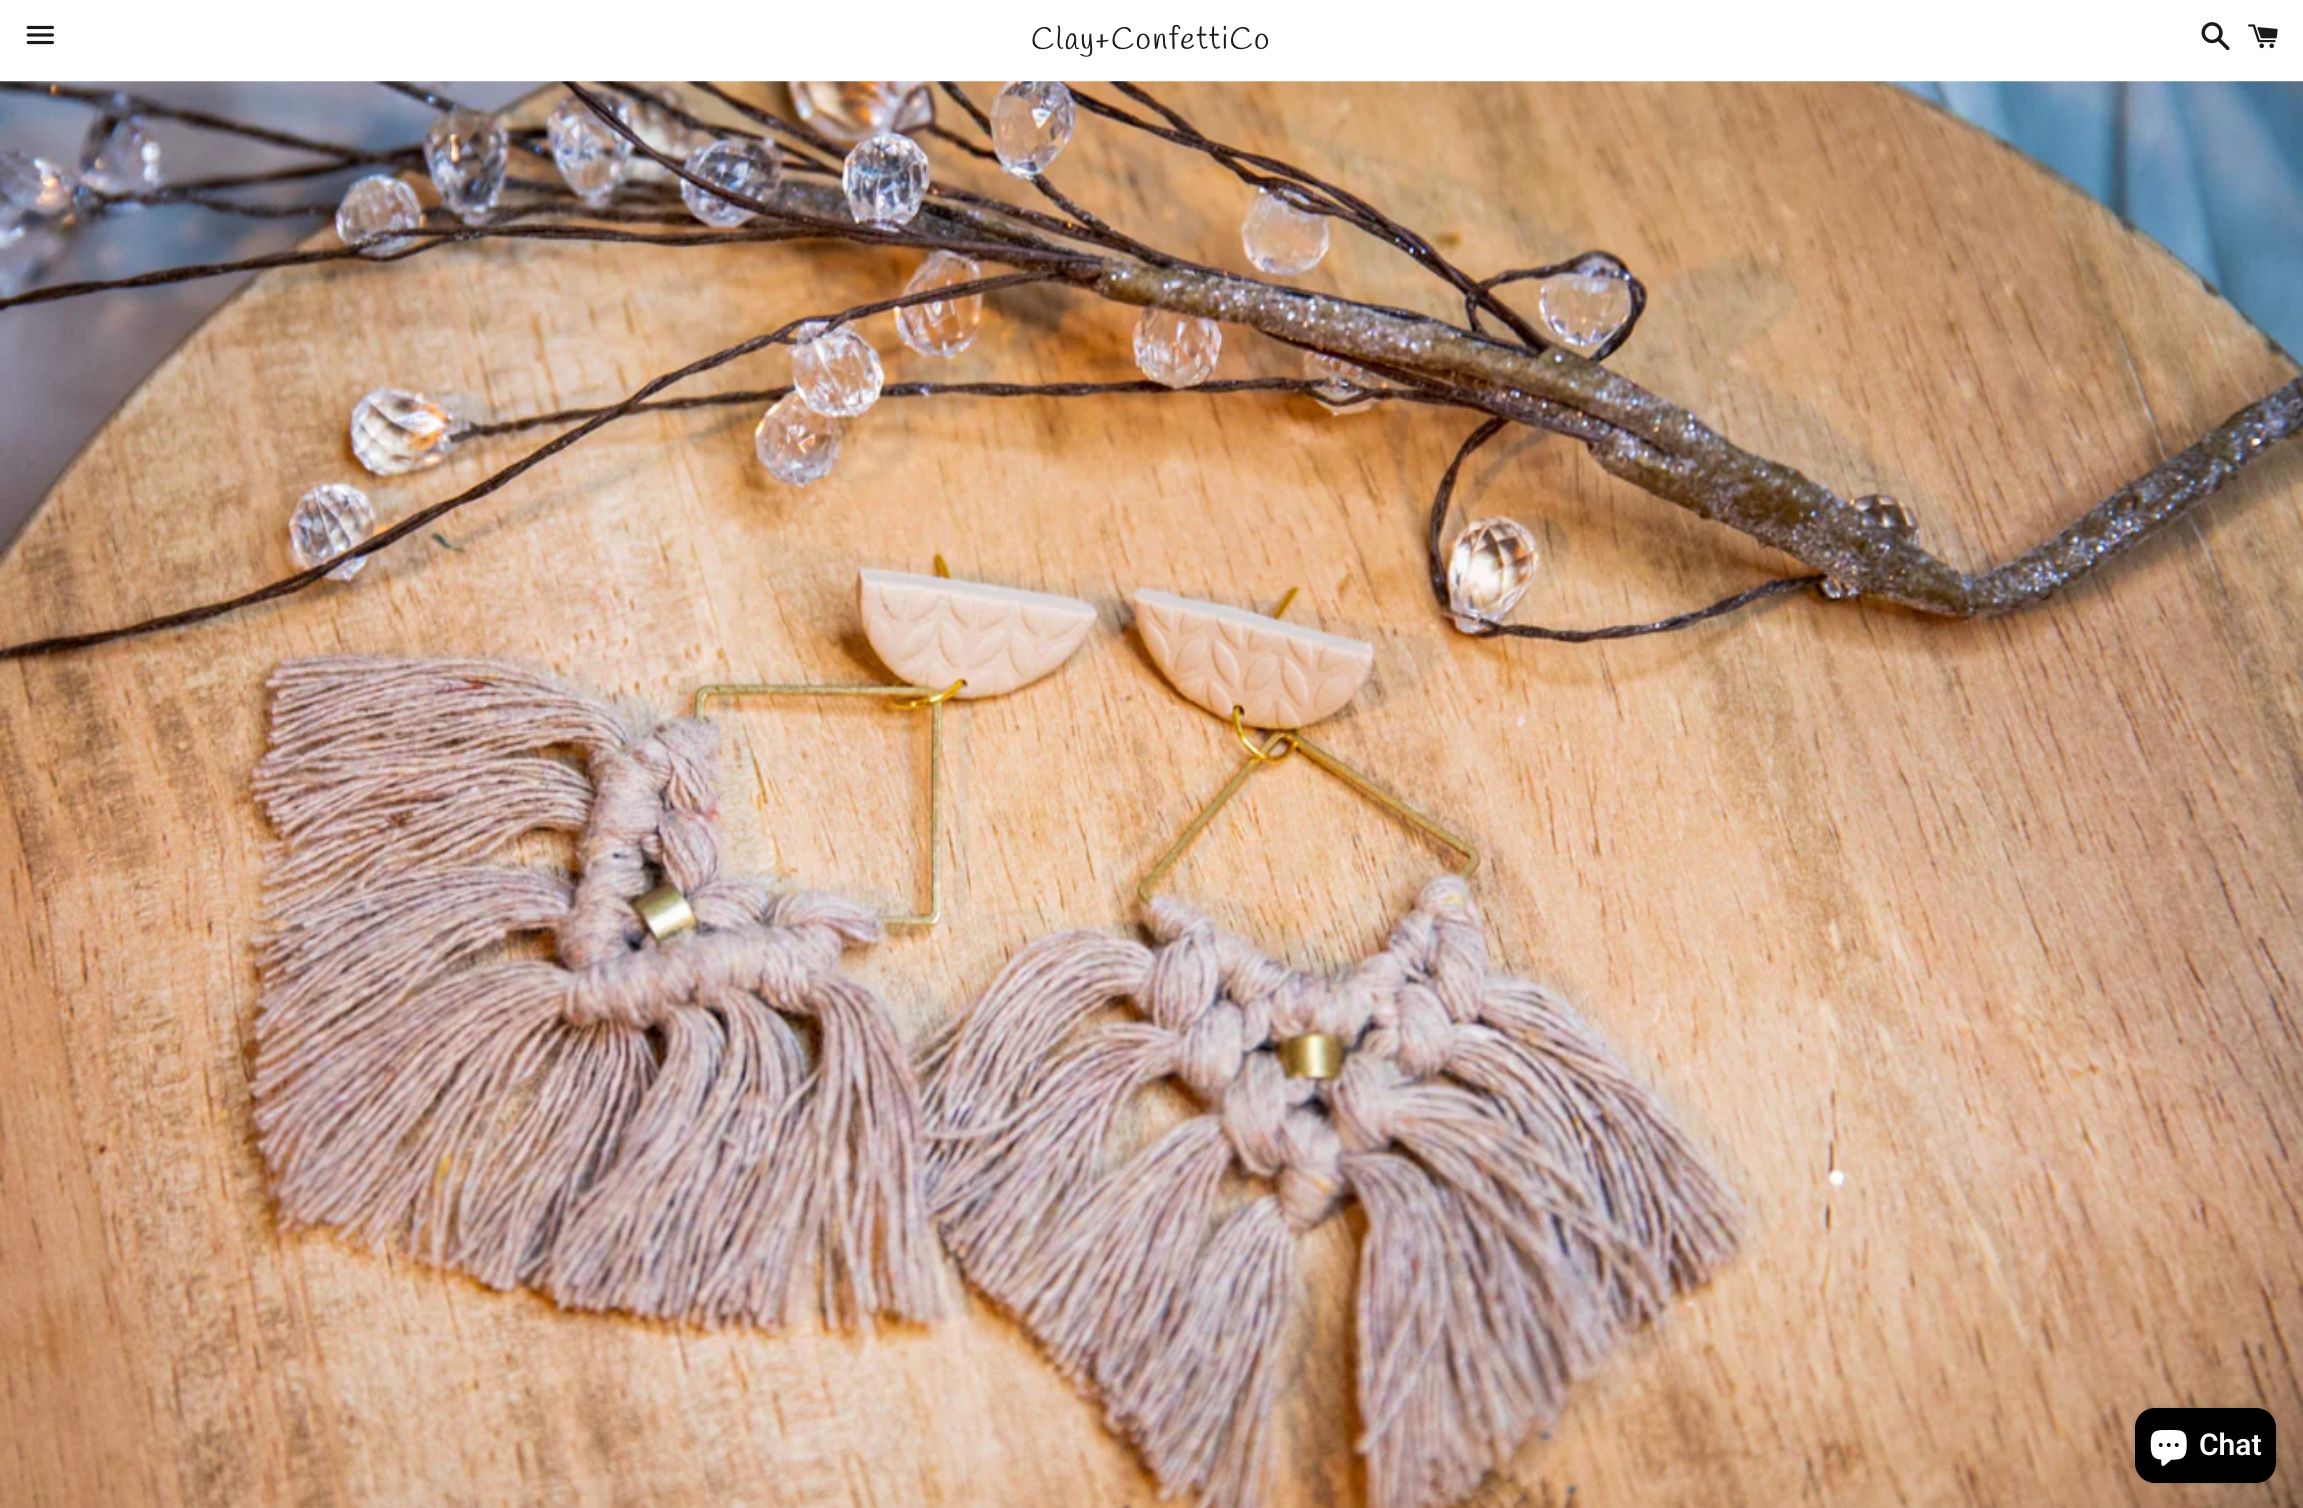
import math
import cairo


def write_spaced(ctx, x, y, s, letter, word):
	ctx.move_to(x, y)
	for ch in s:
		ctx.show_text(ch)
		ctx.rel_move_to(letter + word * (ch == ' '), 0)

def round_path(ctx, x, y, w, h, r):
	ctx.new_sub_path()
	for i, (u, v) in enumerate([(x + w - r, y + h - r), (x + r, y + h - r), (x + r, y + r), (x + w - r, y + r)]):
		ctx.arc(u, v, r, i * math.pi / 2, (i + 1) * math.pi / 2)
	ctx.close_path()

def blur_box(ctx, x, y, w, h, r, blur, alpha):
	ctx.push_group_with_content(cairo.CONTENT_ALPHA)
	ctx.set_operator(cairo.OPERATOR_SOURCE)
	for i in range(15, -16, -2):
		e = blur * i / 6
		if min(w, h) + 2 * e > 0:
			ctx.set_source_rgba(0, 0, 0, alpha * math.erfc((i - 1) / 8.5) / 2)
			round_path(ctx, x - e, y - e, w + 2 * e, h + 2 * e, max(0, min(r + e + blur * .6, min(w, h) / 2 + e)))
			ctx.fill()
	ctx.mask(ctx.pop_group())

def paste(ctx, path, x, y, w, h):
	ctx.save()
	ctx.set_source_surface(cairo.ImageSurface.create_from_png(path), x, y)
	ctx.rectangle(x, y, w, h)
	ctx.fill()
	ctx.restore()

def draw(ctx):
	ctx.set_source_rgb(1, 1, 1)
	ctx.paint()
	paste(ctx, 'media/1.png', 26, 25, 28, 20)
	ctx.select_font_face('Handlee')
	ctx.set_font_size(31.25)
	ctx.set_source_rgb(0.102, 0.102, 0.102)
	write_spaced(ctx, 1031, 49, 'Clay+ConfettiCo', 1.5, 0)
	paste(ctx, 'media/2.png', 2201, 22, 29, 29)
	paste(ctx, 'media/3.png', 2248, 24, 30, 25)
	paste(ctx, 'media/4.png', 0, 81, 2303, 1427)
	ctx.set_source_rgb(0, 0, 0)
	blur_box(ctx, 2135, 1408, 141, 75, 20, 3, 0.15)
	ctx.set_source_rgb(0, 0, 0)
	round_path(ctx, 2135, 1408, 141, 75, 20)
	ctx.fill()
	paste(ctx, 'media/5.png', 2150, 1430, 37, 36)
	ctx.select_font_face('Roboto SemiBold')
	ctx.set_font_size(30)
	ctx.set_source_rgb(1, 1, 1)
	ctx.move_to(2199, 1455)
	ctx.show_text('Chat')


surface = cairo.ImageSurface(cairo.FORMAT_RGB24, 2303, 1508)
ctx = cairo.Context(surface)
options = cairo.FontOptions()
options.set_hint_metrics(cairo.HINT_METRICS_OFF)
options.set_hint_style(cairo.HINT_STYLE_NONE)
ctx.set_font_options(options)
ctx.set_miter_limit(4)
draw(ctx)
surface.write_to_png('image.png')
